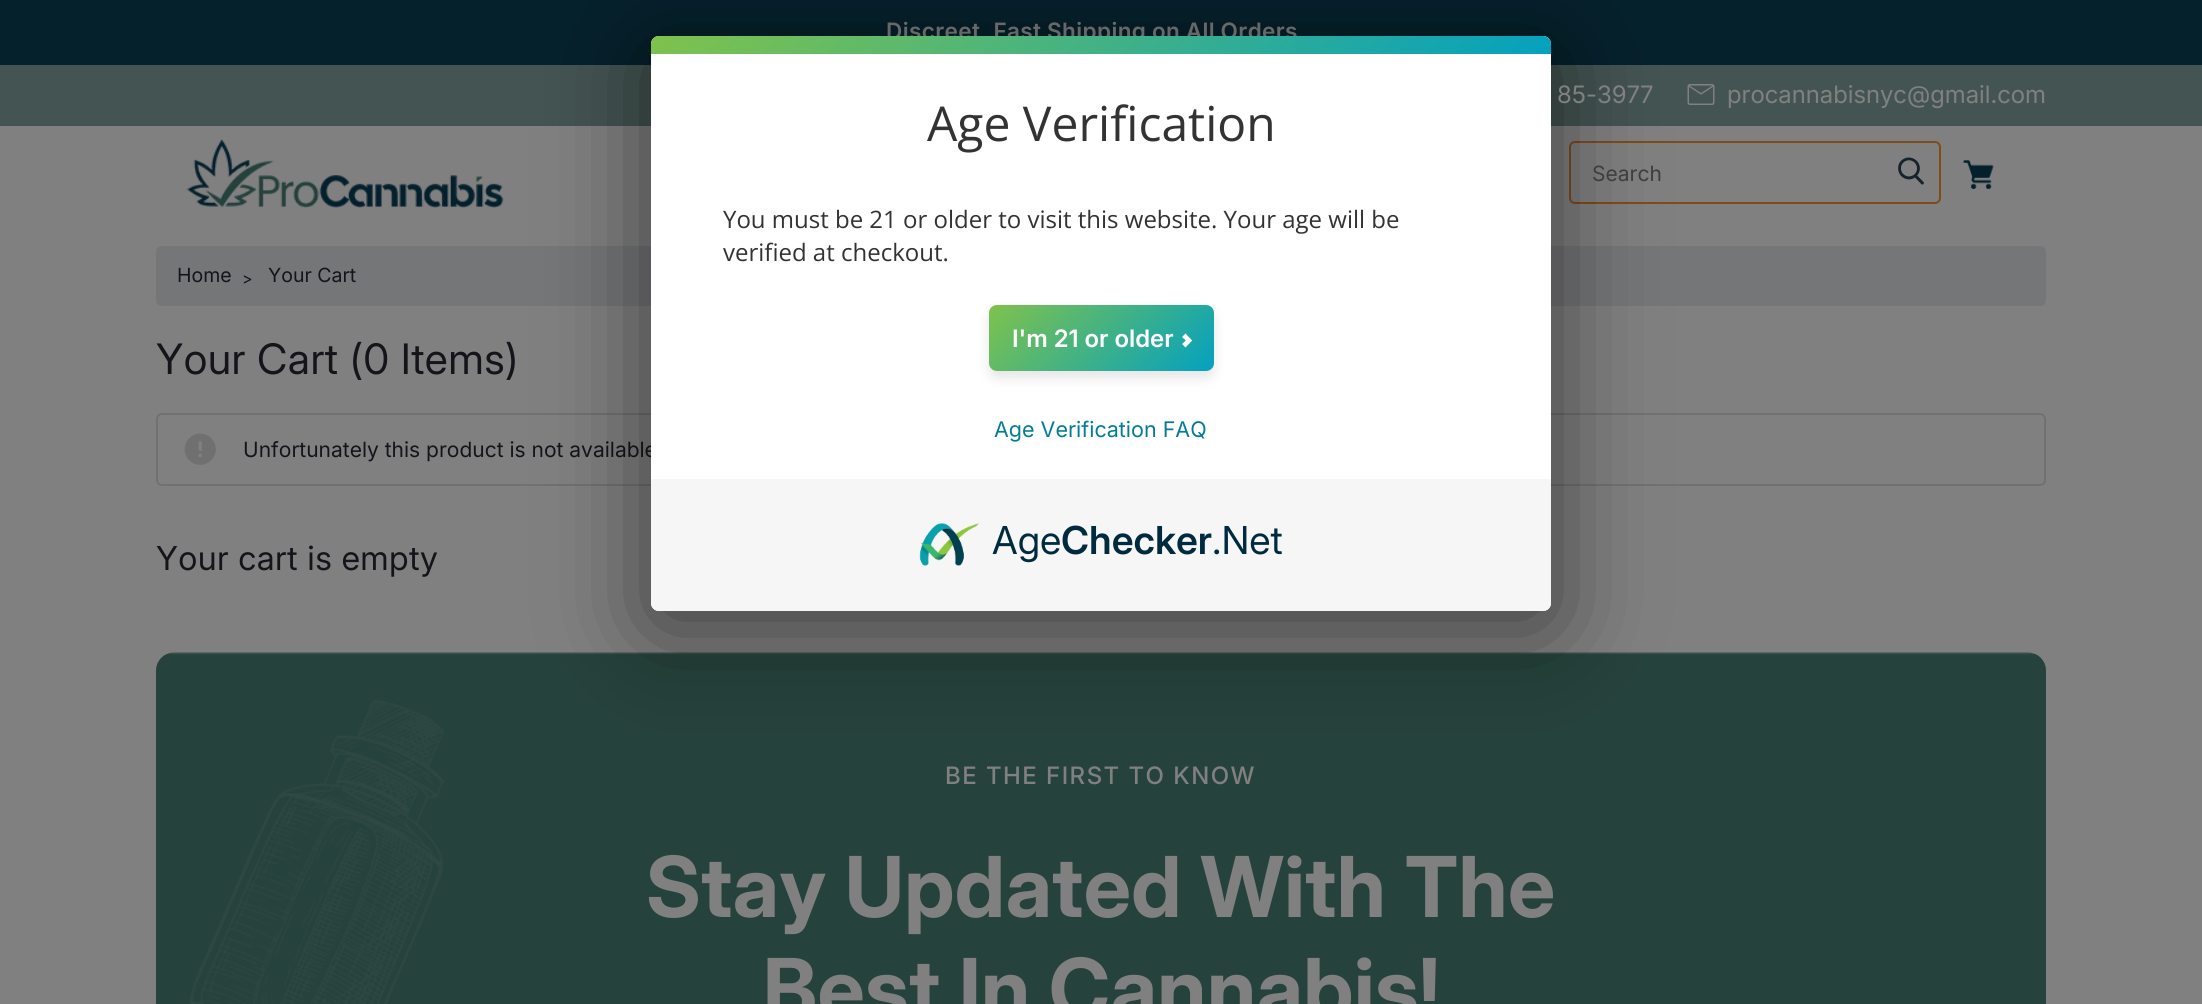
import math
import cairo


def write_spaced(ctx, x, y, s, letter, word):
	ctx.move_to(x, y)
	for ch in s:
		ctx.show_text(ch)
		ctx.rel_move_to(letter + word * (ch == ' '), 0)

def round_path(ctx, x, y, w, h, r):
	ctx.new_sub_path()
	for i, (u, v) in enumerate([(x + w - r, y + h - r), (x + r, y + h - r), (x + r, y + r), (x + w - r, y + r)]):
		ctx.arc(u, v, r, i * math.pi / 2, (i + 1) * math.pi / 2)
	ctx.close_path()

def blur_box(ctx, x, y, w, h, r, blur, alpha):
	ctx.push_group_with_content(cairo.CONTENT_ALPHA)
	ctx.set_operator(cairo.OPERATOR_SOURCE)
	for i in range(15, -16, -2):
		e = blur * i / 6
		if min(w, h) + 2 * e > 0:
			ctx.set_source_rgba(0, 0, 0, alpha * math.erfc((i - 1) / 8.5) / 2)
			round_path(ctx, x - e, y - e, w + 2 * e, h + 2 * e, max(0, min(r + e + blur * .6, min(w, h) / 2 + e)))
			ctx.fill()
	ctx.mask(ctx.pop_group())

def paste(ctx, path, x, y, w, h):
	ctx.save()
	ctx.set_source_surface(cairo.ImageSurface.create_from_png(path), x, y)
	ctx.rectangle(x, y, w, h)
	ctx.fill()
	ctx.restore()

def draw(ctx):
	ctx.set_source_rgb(0.502, 0.502, 0.502)
	ctx.paint()
	ctx.set_source_rgb(0.02, 0.129, 0.173)
	ctx.rectangle(0, 0, 2202, 65)
	ctx.fill()
	ctx.select_font_face('Inter SemiBold')
	ctx.set_font_size(22.5)
	ctx.set_source_rgb(0.502, 0.502, 0.502)
	write_spaced(ctx, 886, 39, 'Discreet, Fast Shipping on All Orders', 0.4, -0.5)
	ctx.set_source_rgb(0.459, 0.463, 0.471)
	round_path(ctx, 156, 246, 1890, 60, 6)
	ctx.fill()
	ctx.select_font_face('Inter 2')
	ctx.set_font_size(19.5)
	ctx.set_source_rgb(0.086, 0.082, 0.106)
	ctx.move_to(177, 282)
	ctx.show_text('Home')
	ctx.set_font_size(16)
	ctx.move_to(242, 284)
	ctx.show_text('>')
	ctx.set_font_size(19.5)
	ctx.move_to(268, 282)
	ctx.show_text('Your Cart')
	ctx.select_font_face('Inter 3')
	ctx.set_font_size(42)
	write_spaced(ctx, 156, 374, 'Your Cart (0 Items)', 0.4, 0)
	round_path(ctx, 157, 414, 1888, 71, 5)
	ctx.set_source_rgb(0.447, 0.439, 0.439)
	ctx.stroke()
	paste(ctx, 'media/1.png', 184, 433, 32, 32)
	ctx.select_font_face('Inter 2')
	ctx.set_font_size(21)
	ctx.set_source_rgb(0.086, 0.082, 0.106)
	ctx.move_to(243, 457)
	ctx.show_text('Unfortunately this product is not available')
	ctx.select_font_face('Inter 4')
	ctx.set_font_size(33)
	write_spaced(ctx, 156, 570, 'Your cart is empty', 0.4, 0)
	ctx.set_source_rgb(0.267, 0.329, 0.322)
	ctx.rectangle(0, 65, 2202, 61)
	ctx.fill()
	paste(ctx, 'media/3.png', 1687, 84, 28, 21)
	paste(ctx, 'media/4.png', 186, 139, 318, 69)
	round_path(ctx, 1570, 142, 370, 61, 5)
	ctx.set_source_rgb(0.502, 0.294, 0.106)
	ctx.stroke()
	paste(ctx, 'media/7.png', 156, 652, 1890, 352)
	ctx.set_source_rgb(0, 0, 0)
	blur_box(ctx, 647, 47, 909, 583, 12, 48, 0.5)
	ctx.set_source_rgb(1, 1, 1)
	round_path(ctx, 651, 36, 900, 575, 8)
	ctx.fill()
	gradient = cairo.LinearGradient(872, -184, 1331, 275)
	gradient.add_color_stop_rgba(0, 0.498, 0.761, 0.298, 1)
	gradient.add_color_stop_rgba(1, 0.016, 0.631, 0.749, 1)
	ctx.set_source(gradient)
	ctx.new_path()
	ctx.move_to(659, 36)
	ctx.line_to(1543, 36)
	ctx.curve_to(1547.5, 36, 1551, 39.5, 1551, 44)
	ctx.line_to(1551, 54)
	ctx.line_to(651, 54)
	ctx.line_to(651, 44)
	ctx.curve_to(651, 39.5, 654.5, 36, 659, 36)
	ctx.close_path()
	ctx.fill()
	ctx.select_font_face('Open Sans')
	ctx.set_font_size(48)
	ctx.set_source_rgb(0.2, 0.2, 0.2)
	ctx.move_to(927, 141)
	ctx.show_text('Age Verification')
	ctx.set_font_size(24)
	ctx.move_to(723, 228)
	ctx.show_text('You must be 21 or older to visit this website. Your age will be')
	ctx.move_to(723, 261)
	ctx.show_text('verified at checkout.')
	ctx.set_source_rgb(0, 0, 0)
	blur_box(ctx, 989, 312, 225, 66, 8, 6, 0.1)
	gradient = cairo.LinearGradient(1028, 265, 1174, 410)
	gradient.add_color_stop_rgba(0, 0.498, 0.761, 0.298, 1)
	gradient.add_color_stop_rgba(1, 0.016, 0.631, 0.749, 1)
	ctx.set_source(gradient)
	round_path(ctx, 989, 305, 225, 66, 8)
	ctx.fill()
	ctx.select_font_face('Inter 2 SemiBold')
	ctx.set_source_rgb(1, 1, 1)
	ctx.move_to(1012, 347)
	ctx.show_text('I\'m 21 or older')
	ctx.new_path()
	ctx.move_to(1182, 337)
	ctx.line_to(1185.5, 333.5)
	ctx.line_to(1192, 340.5)
	ctx.line_to(1189, 343.5)
	ctx.close_path()
	ctx.fill()
	ctx.new_path()
	ctx.move_to(1182, 344)
	ctx.line_to(1189, 337.5)
	ctx.line_to(1192, 340.5)
	ctx.line_to(1185.5, 347.5)
	ctx.close_path()
	ctx.fill()
	ctx.select_font_face('Inter 2')
	ctx.set_font_size(21.5)
	ctx.set_source_rgb(0.012, 0.49, 0.588)
	ctx.move_to(994, 437)
	ctx.show_text('Age Verification FAQ')
	ctx.set_source_rgb(0.961, 0.961, 0.961)
	ctx.new_path()
	ctx.move_to(651, 479)
	ctx.line_to(1551, 479)
	ctx.line_to(1551, 603)
	ctx.curve_to(1551, 607.5, 1547.5, 611, 1543, 611)
	ctx.line_to(659, 611)
	ctx.curve_to(654.5, 611, 651, 607.5, 651, 603)
	ctx.close_path()
	ctx.fill()
	paste(ctx, 'media/2.png', 919, 523, 60, 43)
	ctx.select_font_face('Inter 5')
	ctx.set_font_size(38.5)
	ctx.set_source_rgb(0, 0.169, 0.243)
	ctx.move_to(992, 554)
	ctx.show_text('Age')
	ctx.select_font_face('Inter 3 SemiBold')
	ctx.move_to(1061, 554)
	ctx.show_text('Checker')
	ctx.select_font_face('Inter 5')
	ctx.move_to(1212, 554)
	ctx.show_text('.Net')
	ctx.select_font_face('Inter')
	ctx.set_font_size(24)
	ctx.set_source_rgb(0.502, 0.502, 0.502)
	ctx.move_to(1557, 103)
	ctx.show_text('85-3977')
	ctx.move_to(1727, 103)
	ctx.show_text('procannabisnyc@gmail.com')
	ctx.select_font_face('Inter 2')
	ctx.set_font_size(21)
	ctx.set_source_rgb(0.243, 0.243, 0.243)
	ctx.move_to(1592, 181)
	ctx.show_text('Search')
	paste(ctx, 'media/5.png', 1898, 157, 26, 28)
	paste(ctx, 'media/6.png', 1963, 160, 31, 29)
	ctx.select_font_face('Inter Medium')
	ctx.set_font_size(24)
	ctx.set_source_rgb(0.502, 0.502, 0.502)
	write_spaced(ctx, 945, 784, 'BE THE FIRST TO KNOW', 1.5, 0)
	ctx.select_font_face('Inter', cairo.FONT_SLANT_NORMAL, cairo.FONT_WEIGHT_BOLD)
	ctx.set_font_size(84)
	write_spaced(ctx, 646, 917, 'Stay Updated With The', 0.4, 0)
	write_spaced(ctx, 763, 1019, 'Best In Cannabis!', 0.4, 0)


surface = cairo.ImageSurface(cairo.FORMAT_RGB24, 2202, 1004)
ctx = cairo.Context(surface)
options = cairo.FontOptions()
options.set_hint_metrics(cairo.HINT_METRICS_OFF)
options.set_hint_style(cairo.HINT_STYLE_NONE)
ctx.set_font_options(options)
ctx.set_miter_limit(4)
draw(ctx)
surface.write_to_png('image.png')
